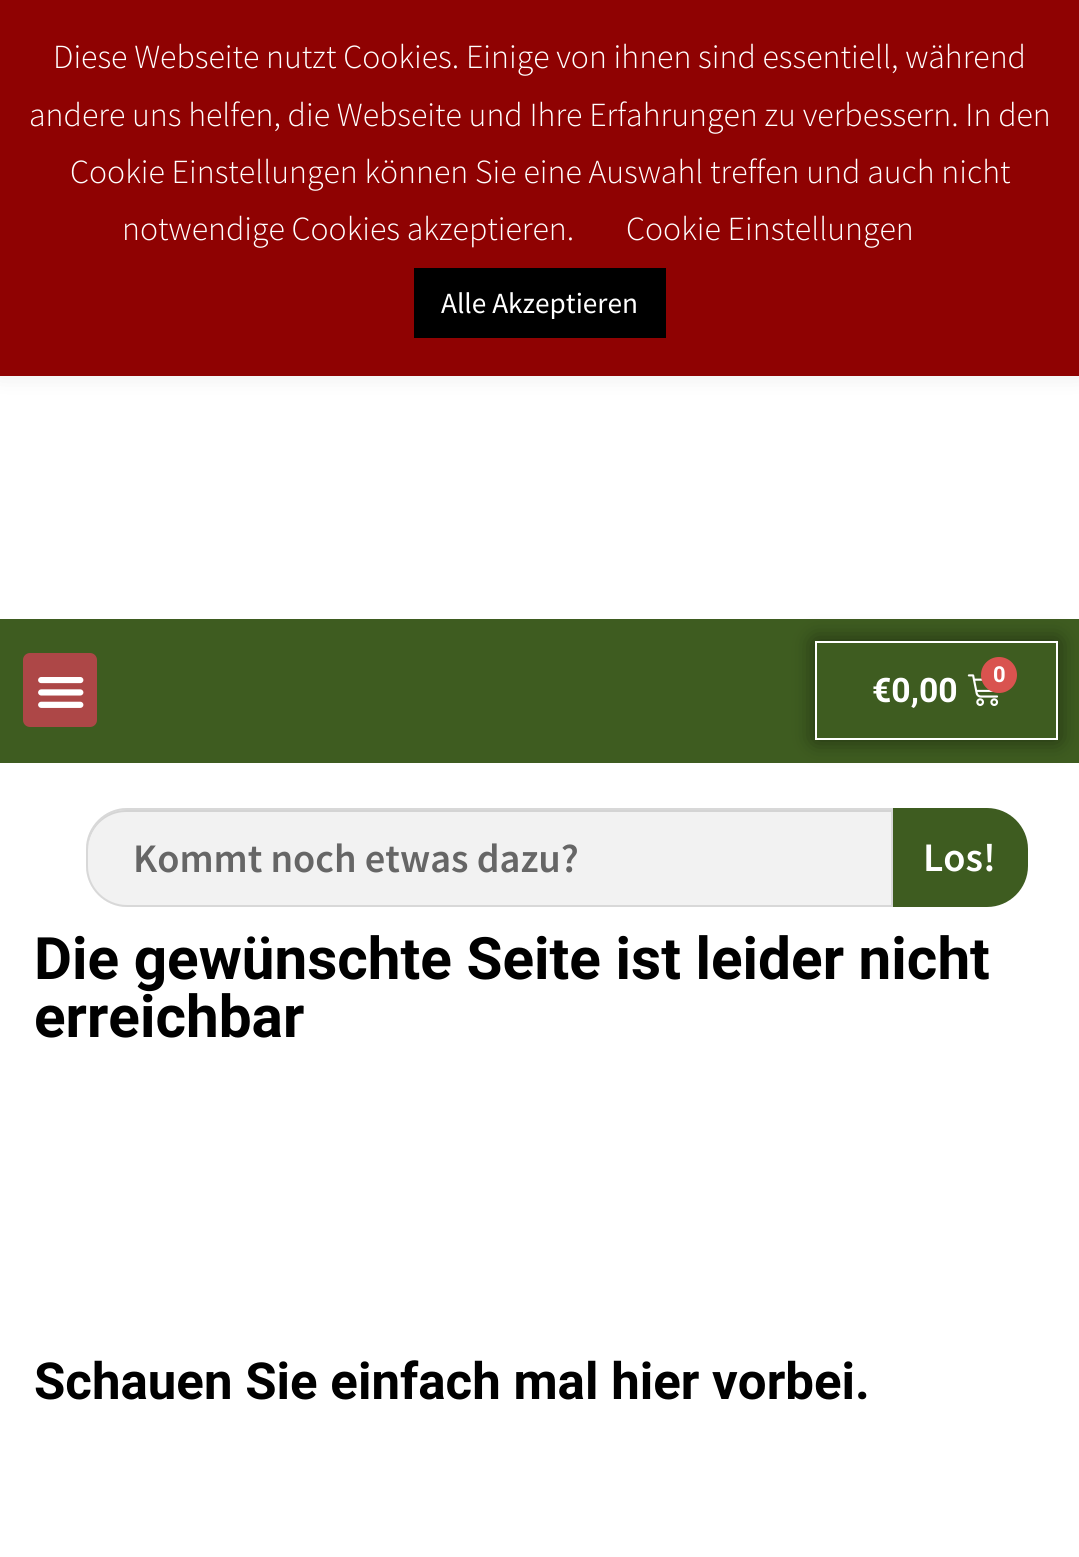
import math
import cairo


def round_path(ctx, x, y, w, h, r):
	ctx.new_sub_path()
	for i, (u, v) in enumerate([(x + w - r, y + h - r), (x + r, y + h - r), (x + r, y + r), (x + w - r, y + r)]):
		ctx.arc(u, v, r, i * math.pi / 2, (i + 1) * math.pi / 2)
	ctx.close_path()

def blur_box(ctx, x, y, w, h, r, blur, alpha):
	ctx.push_group_with_content(cairo.CONTENT_ALPHA)
	ctx.set_operator(cairo.OPERATOR_SOURCE)
	for i in range(15, -16, -2):
		e = blur * i / 6
		if min(w, h) + 2 * e > 0:
			ctx.set_source_rgba(0, 0, 0, alpha * math.erfc((i - 1) / 8.5) / 2)
			round_path(ctx, x - e, y - e, w + 2 * e, h + 2 * e, max(0, min(r + e + blur * .6, min(w, h) / 2 + e)))
			ctx.fill()
	ctx.mask(ctx.pop_group())

def paste(ctx, path, x, y, w, h):
	ctx.save()
	ctx.set_source_surface(cairo.ImageSurface.create_from_png(path), x, y)
	ctx.rectangle(x, y, w, h)
	ctx.fill()
	ctx.restore()

def draw(ctx):
	ctx.set_source_rgb(1, 1, 1)
	ctx.paint()
	ctx.set_source_rgb(0.675, 0.671, 0.671)
	blur_box(ctx, 0, -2, 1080, 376, 0, 11, 0.3)
	ctx.set_source_rgb(0.561, 0.008, 0.008)
	ctx.rectangle(0, 0, 1079, 376)
	ctx.fill()
	ctx.select_font_face('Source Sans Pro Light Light')
	ctx.set_font_size(33.75)
	ctx.set_source_rgb(1, 1, 1)
	for x, y, s in [
		(53, 68, 'Diese Webseite nutzt Cookies. Einige von ihnen sind essentiell, während'),
		(29, 126, 'andere uns helfen, die Webseite und Ihre Erfahrungen zu verbessern. In den'),
		(70, 183, 'Cookie Einstellungen können Sie eine Auswahl treffen und auch nicht'),
		(122, 240, 'notwendige Cookies akzeptieren.'),
		(626, 240, 'Cookie Einstellungen'),
	]:
		ctx.move_to(x, y)
		ctx.show_text(s)
	ctx.set_source_rgb(0, 0, 0)
	ctx.rectangle(414, 268, 252, 70)
	ctx.fill()
	ctx.select_font_face('Source Sans Pro')
	ctx.set_font_size(29.25)
	ctx.set_source_rgb(1, 1, 1)
	ctx.move_to(441, 313)
	ctx.show_text('Alle Akzeptieren')
	ctx.set_source_rgb(0.243, 0.361, 0.125)
	ctx.rectangle(0, 619, 1079, 144)
	ctx.fill()
	ctx.set_source_rgb(0.678, 0.278, 0.278)
	round_path(ctx, 23, 653, 74, 74, 7)
	ctx.fill()
	paste(ctx, 'media/1.png', 38, 677, 46, 31)
	ctx.save()
	ctx.set_fill_rule(cairo.FILL_RULE_EVEN_ODD)
	ctx.new_path()
	ctx.move_to(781, 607)
	ctx.line_to(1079, 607)
	ctx.line_to(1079, 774)
	ctx.line_to(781, 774)
	ctx.close_path()
	ctx.move_to(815, 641)
	ctx.line_to(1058, 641)
	ctx.line_to(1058, 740)
	ctx.line_to(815, 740)
	ctx.close_path()
	ctx.clip()
	ctx.set_source_rgb(0, 0, 0)
	blur_box(ctx, 815, 641, 243, 99, 0, 11, 0.5)
	ctx.restore()
	ctx.rectangle(816, 642, 241, 97)
	ctx.set_source_rgb(1, 1, 1)
	ctx.stroke()
	paste(ctx, 'media/2.png', 967, 674, 32, 32)
	ctx.set_source_rgb(0.851, 0.325, 0.31)
	ctx.arc(999, 675, 18, 0, 2 * math.pi)
	ctx.fill()
	ctx.select_font_face('Roboto', cairo.FONT_SLANT_NORMAL, cairo.FONT_WEIGHT_BOLD)
	ctx.set_font_size(22)
	ctx.set_source_rgb(1, 1, 1)
	ctx.move_to(993, 682)
	ctx.show_text('0')
	ctx.set_font_size(33.75)
	ctx.move_to(872, 702)
	ctx.show_text('€0,00')
	ctx.set_source_rgb(0.243, 0.361, 0.125)
	ctx.new_path()
	ctx.move_to(892, 809)
	ctx.line_to(987, 809)
	ctx.curve_to(1009, 809, 1027, 827, 1027, 849)
	ctx.line_to(1027, 866)
	ctx.curve_to(1027, 888, 1009, 906, 987, 906)
	ctx.line_to(892, 906)
	ctx.close_path()
	ctx.fill_preserve()
	ctx.stroke()
	ctx.set_source_rgb(0.949, 0.949, 0.949)
	ctx.new_path()
	ctx.move_to(127, 808)
	ctx.line_to(893, 808)
	ctx.line_to(893, 907)
	ctx.line_to(127, 907)
	ctx.curve_to(104.5, 907, 86, 888.5, 86, 866)
	ctx.line_to(86, 849)
	ctx.curve_to(86, 826.5, 104.5, 808, 127, 808)
	ctx.close_path()
	ctx.fill()
	ctx.set_source_rgb(0.831, 0.831, 0.831)
	ctx.new_path()
	ctx.move_to(126, 812)
	ctx.line_to(891, 812)
	ctx.line_to(891, 810)
	ctx.line_to(126, 810)
	ctx.curve_to(105, 810, 88, 827, 88, 848)
	ctx.line_to(88, 850)
	ctx.curve_to(88, 829, 105, 812, 126, 812)
	ctx.close_path()
	ctx.fill()
	ctx.new_path()
	ctx.move_to(127, 809)
	ctx.line_to(892, 809)
	ctx.line_to(892, 906)
	ctx.line_to(127, 906)
	ctx.curve_to(105, 906, 87, 888, 87, 866)
	ctx.line_to(87, 849)
	ctx.curve_to(87, 827, 105, 809, 127, 809)
	ctx.close_path()
	ctx.set_source_rgb(0.847, 0.847, 0.847)
	ctx.stroke()
	ctx.select_font_face('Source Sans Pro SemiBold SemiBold')
	ctx.set_font_size(40.5)
	ctx.set_source_rgb(0.4, 0.4, 0.4)
	ctx.move_to(133, 872)
	ctx.show_text('Kommt noch etwas dazu?')
	ctx.set_source_rgb(1, 1, 1)
	ctx.move_to(923, 871)
	ctx.show_text('Los!')
	ctx.select_font_face('Roboto', cairo.FONT_SLANT_NORMAL, cairo.FONT_WEIGHT_BOLD)
	ctx.set_font_size(58.5)
	ctx.set_source_rgb(0, 0, 0)
	ctx.move_to(34, 979)
	ctx.show_text('Die gewünschte Seite ist leider nicht')
	ctx.move_to(34, 1037)
	ctx.show_text('erreichbar')
	ctx.set_font_size(51)
	ctx.move_to(34, 1399)
	ctx.show_text('Schauen Sie einfach mal hier vorbei.')


surface = cairo.ImageSurface(cairo.FORMAT_RGB24, 1079, 1557)
ctx = cairo.Context(surface)
options = cairo.FontOptions()
options.set_hint_metrics(cairo.HINT_METRICS_OFF)
options.set_hint_style(cairo.HINT_STYLE_NONE)
ctx.set_font_options(options)
ctx.set_miter_limit(4)
draw(ctx)
surface.write_to_png('image.png')
